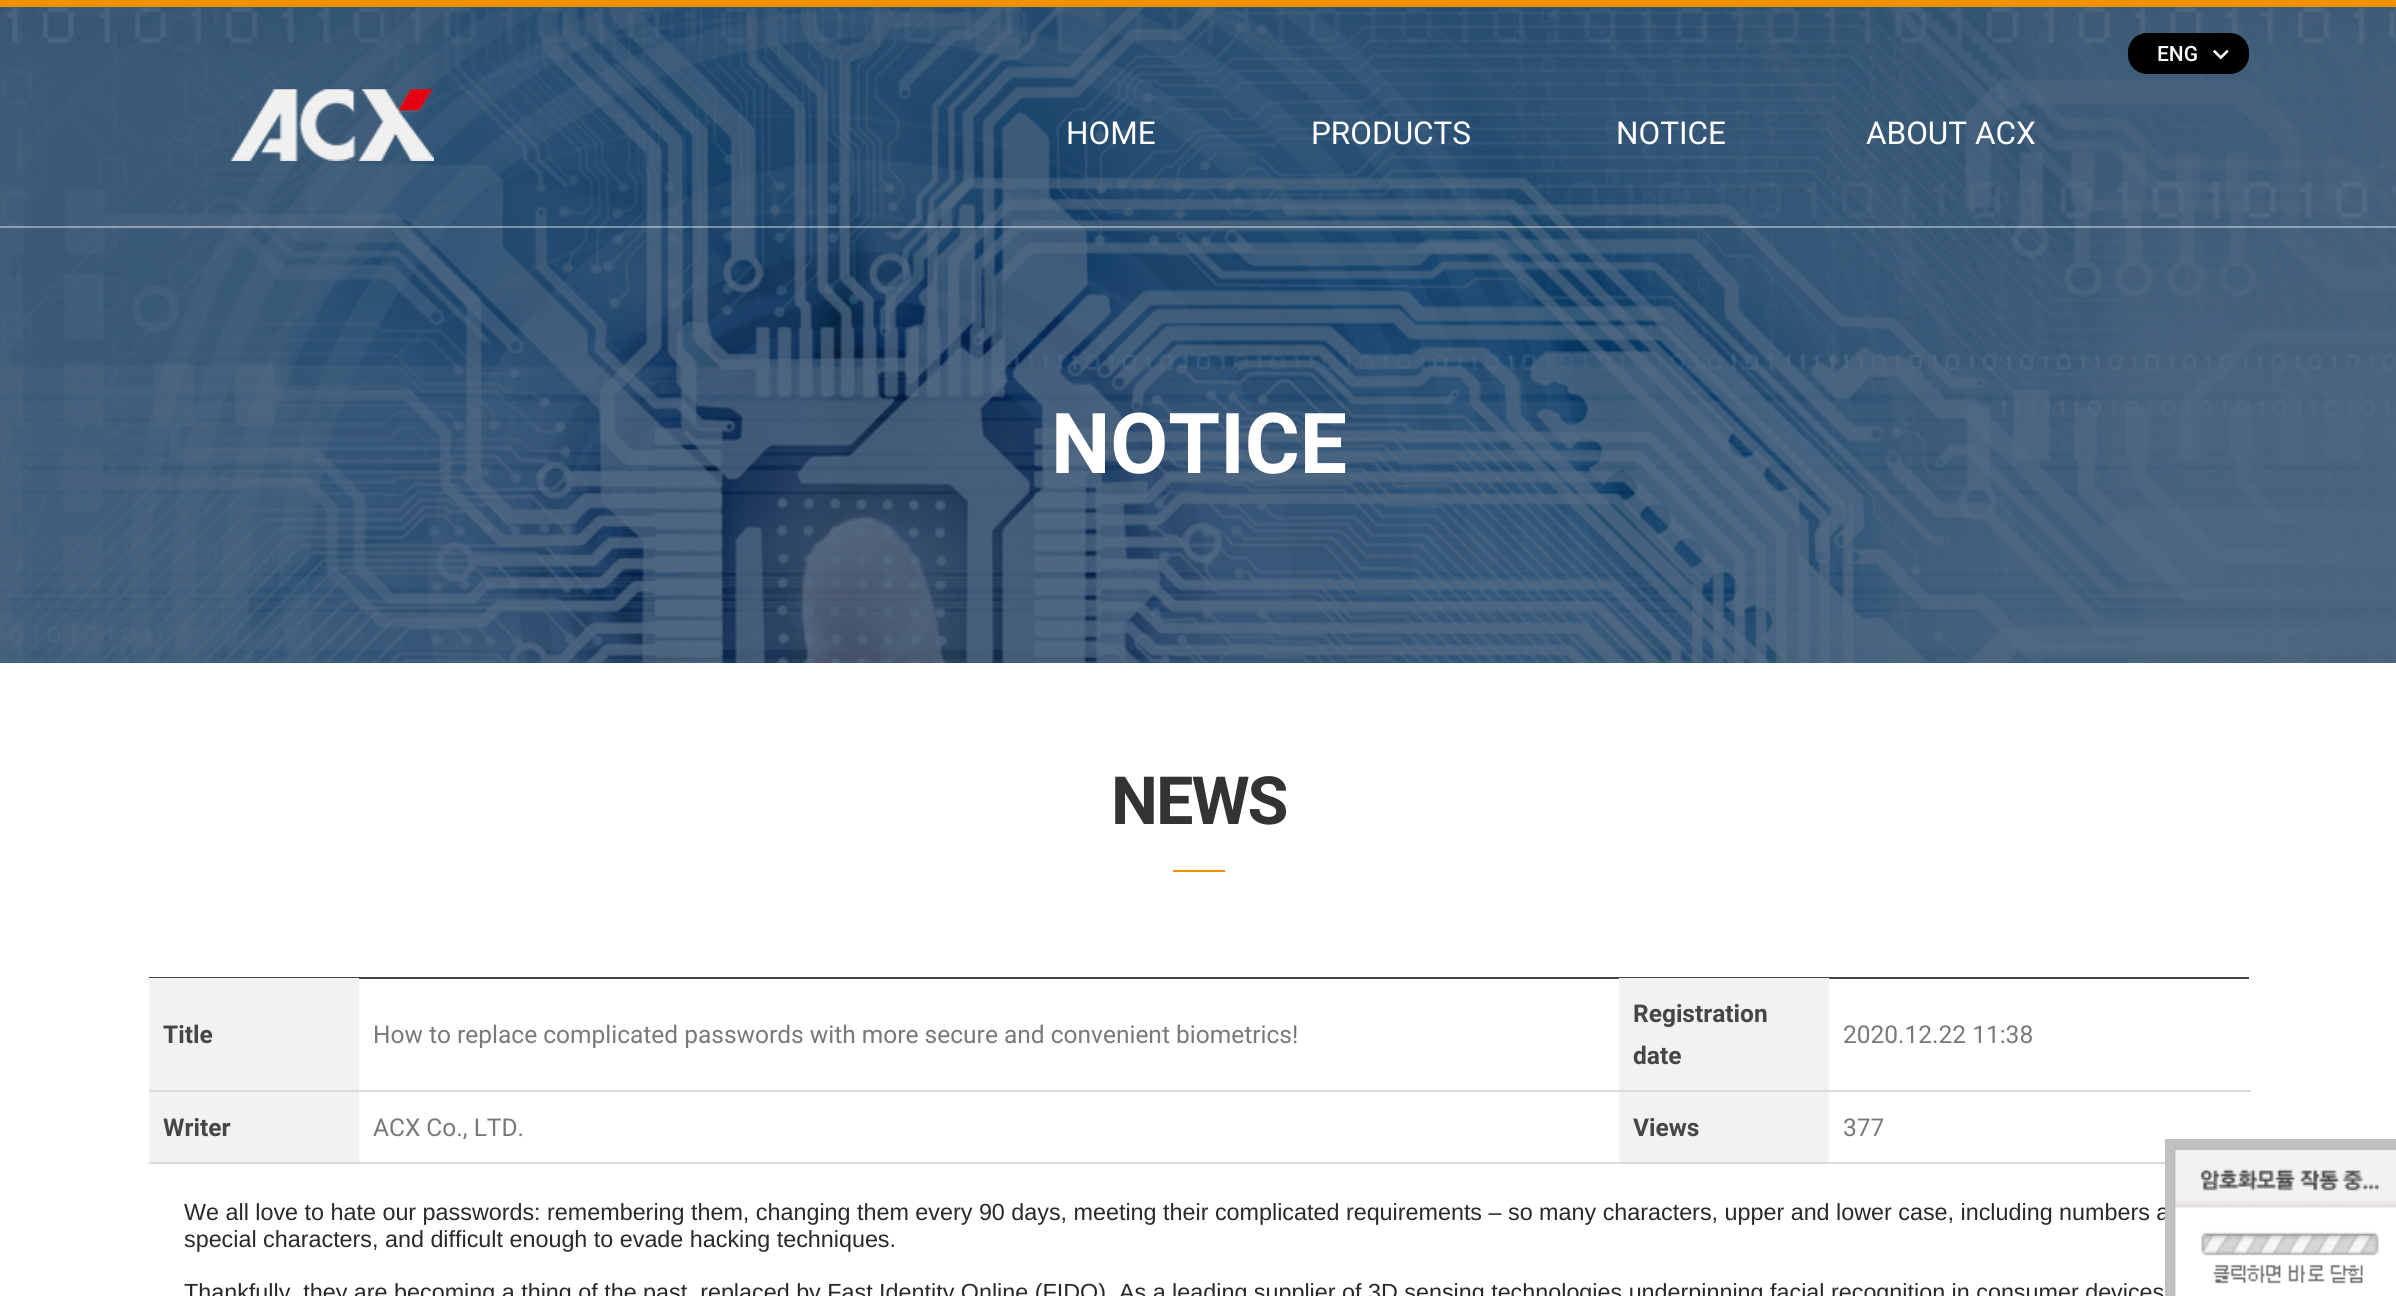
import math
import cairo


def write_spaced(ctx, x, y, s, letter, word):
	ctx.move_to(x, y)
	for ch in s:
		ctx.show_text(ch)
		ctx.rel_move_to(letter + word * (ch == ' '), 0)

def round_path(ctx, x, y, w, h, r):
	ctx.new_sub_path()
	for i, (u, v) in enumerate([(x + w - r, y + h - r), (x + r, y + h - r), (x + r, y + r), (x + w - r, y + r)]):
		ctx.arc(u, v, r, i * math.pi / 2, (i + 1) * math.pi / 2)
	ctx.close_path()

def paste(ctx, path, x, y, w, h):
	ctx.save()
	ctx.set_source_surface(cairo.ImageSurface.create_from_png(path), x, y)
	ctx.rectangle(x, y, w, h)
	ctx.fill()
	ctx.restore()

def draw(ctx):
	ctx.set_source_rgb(1, 1, 1)
	ctx.paint()
	ctx.set_source_rgb(0.945, 0.569, 0)
	ctx.rectangle(0, 0, 2396, 7)
	ctx.fill()
	paste(ctx, 'media/3.png', 0, 7, 2396, 656)
	ctx.set_source_rgba(1, 1, 1, 0.4)
	ctx.rectangle(0, 226, 2396, 2)
	ctx.fill()
	ctx.set_source_rgb(0, 0, 0)
	round_path(ctx, 2129, 34, 119, 39, 18)
	ctx.fill_preserve()
	ctx.stroke()
	ctx.select_font_face('Roboto Medium')
	ctx.set_font_size(21)
	ctx.set_source_rgb(1, 1, 1)
	ctx.move_to(2157, 61)
	ctx.show_text('ENG')
	paste(ctx, 'media/1.png', 2213, 49, 16, 11)
	paste(ctx, 'media/2.png', 230, 89, 204, 72)
	ctx.select_font_face('Roboto')
	ctx.set_font_size(31.5)
	for x, y, s in [
		(1066, 144, 'HOME'),
		(1311, 144, 'PRODUCTS'),
		(1616, 144, 'NOTICE'),
		(1866, 144, 'ABOUT ACX'),
	]:
		ctx.move_to(x, y)
		ctx.show_text(s)
	ctx.select_font_face('Roboto', cairo.FONT_SLANT_NORMAL, cairo.FONT_WEIGHT_BOLD)
	ctx.set_font_size(84)
	ctx.move_to(1051, 473)
	ctx.show_text('NOTICE')
	ctx.set_font_size(66.5)
	ctx.set_source_rgb(0.2, 0.2, 0.2)
	write_spaced(ctx, 1111, 824, 'NEWS', -2, 0)
	ctx.set_source_rgb(0.945, 0.569, 0)
	ctx.rectangle(1173, 870, 52, 2)
	ctx.fill()
	ctx.set_source_rgb(0.275, 0.275, 0.275)
	ctx.rectangle(149, 977, 2100, 2)
	ctx.fill()
	ctx.set_source_rgb(0.949, 0.949, 0.949)
	ctx.rectangle(149, 978, 210, 112)
	ctx.fill()
	ctx.set_font_size(24.5)
	ctx.set_source_rgb(0.275, 0.275, 0.275)
	ctx.move_to(163, 1043)
	ctx.show_text('Title')
	ctx.select_font_face('Roboto')
	ctx.set_source_rgb(0.475, 0.475, 0.475)
	ctx.move_to(373, 1043)
	ctx.show_text('How to replace complicated passwords with more secure and convenient biometrics!')
	ctx.set_source_rgb(0.949, 0.949, 0.949)
	ctx.rectangle(1619, 978, 210, 112)
	ctx.fill()
	ctx.select_font_face('Roboto', cairo.FONT_SLANT_NORMAL, cairo.FONT_WEIGHT_BOLD)
	ctx.set_source_rgb(0.275, 0.275, 0.275)
	ctx.move_to(1633, 1022)
	ctx.show_text('Registration')
	ctx.move_to(1633, 1064)
	ctx.show_text('date')
	ctx.set_source_rgb(0.855, 0.855, 0.855)
	ctx.rectangle(149, 1090, 2102, 2)
	ctx.fill()
	ctx.select_font_face('Roboto')
	ctx.set_source_rgb(0.475, 0.475, 0.475)
	ctx.move_to(1843, 1043)
	ctx.show_text('2020.12.22 11:38')
	ctx.set_source_rgb(0.949, 0.949, 0.949)
	ctx.rectangle(149, 1092, 210, 70)
	ctx.fill()
	ctx.select_font_face('Roboto', cairo.FONT_SLANT_NORMAL, cairo.FONT_WEIGHT_BOLD)
	ctx.set_source_rgb(0.275, 0.275, 0.275)
	ctx.move_to(163, 1136)
	ctx.show_text('Writer')
	ctx.select_font_face('Roboto')
	ctx.set_source_rgb(0.475, 0.475, 0.475)
	ctx.move_to(373, 1136)
	ctx.show_text('ACX Co., LTD.')
	ctx.set_source_rgb(0.949, 0.949, 0.949)
	ctx.rectangle(1619, 1092, 210, 70)
	ctx.fill()
	ctx.select_font_face('Roboto', cairo.FONT_SLANT_NORMAL, cairo.FONT_WEIGHT_BOLD)
	ctx.set_source_rgb(0.275, 0.275, 0.275)
	ctx.move_to(1633, 1136)
	ctx.show_text('Views')
	ctx.set_source_rgb(0.855, 0.855, 0.855)
	ctx.rectangle(149, 1162, 2016, 2)
	ctx.fill()
	ctx.select_font_face('Roboto')
	ctx.set_source_rgb(0.475, 0.475, 0.475)
	ctx.move_to(1843, 1136)
	ctx.show_text('377')
	ctx.select_font_face('Liberation Sans')
	ctx.set_font_size(23.33)
	ctx.set_source_rgb(0.161, 0.161, 0.161)
	for x, y, s in [
		(184, 1220, 'We all love to hate our passwords: remembering them, changing them every 90 days, meeting their complicated requirements – so many characters, upper and lower case, including numbers a'),
		(184, 1247, 'special characters, and difficult enough to evade hacking techniques.'),
		(184, 1300, 'Thankfully, they are becoming a thing of the past, replaced by Fast Identity Online (FIDO). As a leading supplier of 3D sensing technologies underpinning facial recognition in consumer devices'),
	]:
		ctx.move_to(x, y)
		ctx.show_text(s)
	ctx.set_source_rgb(0.753, 0.753, 0.753)
	ctx.rectangle(2165, 1139, 231, 157)
	ctx.fill()
	paste(ctx, 'media/4.png', 2174, 1148, 222, 148)


surface = cairo.ImageSurface(cairo.FORMAT_RGB24, 2396, 1296)
ctx = cairo.Context(surface)
options = cairo.FontOptions()
options.set_hint_metrics(cairo.HINT_METRICS_OFF)
options.set_hint_style(cairo.HINT_STYLE_NONE)
ctx.set_font_options(options)
ctx.set_miter_limit(4)
draw(ctx)
surface.write_to_png('image.png')
